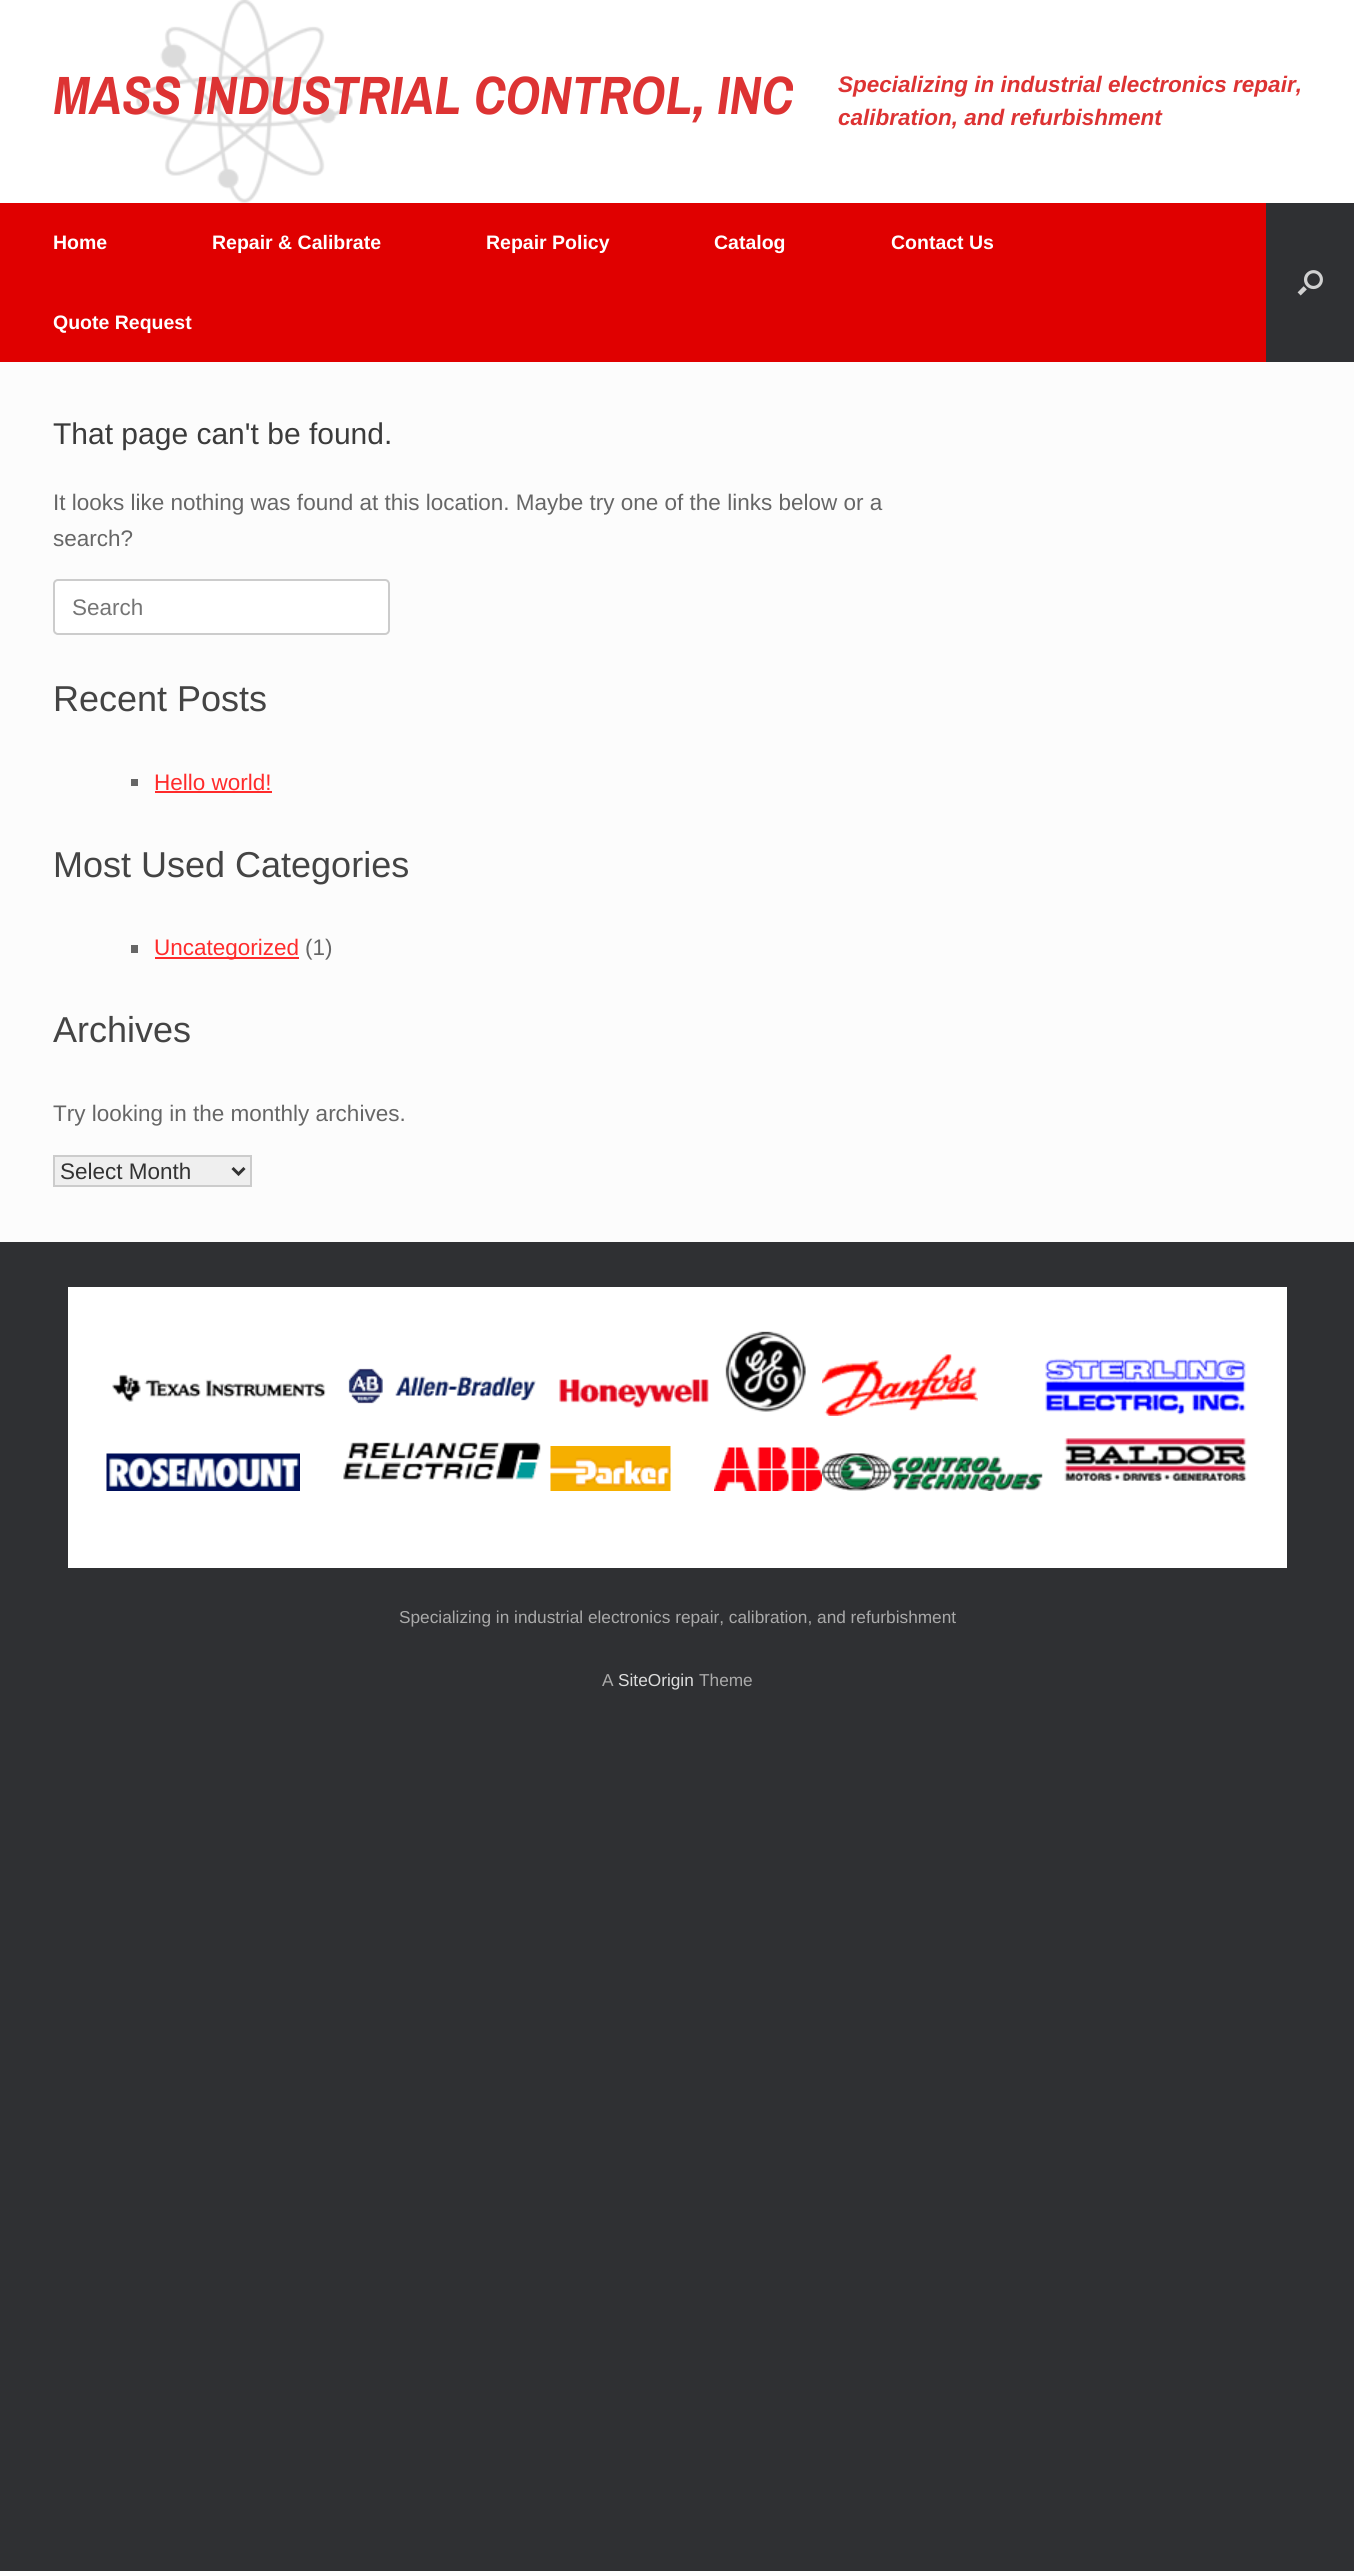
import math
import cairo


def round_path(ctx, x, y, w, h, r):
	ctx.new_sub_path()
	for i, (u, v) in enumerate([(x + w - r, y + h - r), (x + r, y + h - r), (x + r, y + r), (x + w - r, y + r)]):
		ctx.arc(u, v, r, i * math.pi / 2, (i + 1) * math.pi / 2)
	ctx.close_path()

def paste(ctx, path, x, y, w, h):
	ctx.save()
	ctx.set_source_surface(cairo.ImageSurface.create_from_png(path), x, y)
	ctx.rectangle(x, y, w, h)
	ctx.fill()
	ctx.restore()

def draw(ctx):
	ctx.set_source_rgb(0.184, 0.188, 0.2)
	ctx.paint()
	ctx.set_source_rgb(1, 1, 1)
	ctx.rectangle(0, 0, 1354, 203)
	ctx.fill()
	paste(ctx, 'media/1.png', 136, 0, 217, 203)
	ctx.select_font_face('Archivo Narrow', cairo.FONT_SLANT_ITALIC, cairo.FONT_WEIGHT_BOLD)
	ctx.set_font_size(54)
	ctx.set_source_rgb(0.867, 0.2, 0.2)
	ctx.move_to(53, 114)
	ctx.show_text('MASS INDUSTRIAL CONTROL, INC')
	ctx.select_font_face('Liberation Sans', cairo.FONT_SLANT_ITALIC, cairo.FONT_WEIGHT_BOLD)
	ctx.set_font_size(22.5)
	ctx.move_to(838, 92)
	ctx.show_text('Specializing in industrial electronics repair,')
	ctx.move_to(838, 125)
	ctx.show_text('calibration, and refurbishment')
	ctx.set_source_rgb(0.878, 0, 0)
	ctx.rectangle(0, 203, 1266, 159)
	ctx.fill()
	ctx.select_font_face('Liberation Sans', cairo.FONT_SLANT_NORMAL, cairo.FONT_WEIGHT_BOLD)
	ctx.set_font_size(19.5)
	ctx.set_source_rgb(1, 1, 1)
	for x, y, s in [
		(53, 249, 'Home'),
		(212, 249, 'Repair & Calibrate'),
		(486, 249, 'Repair Policy'),
		(714, 249, 'Catalog'),
		(891, 249, 'Contact Us'),
		(53, 329, 'Quote Request'),
	]:
		ctx.move_to(x, y)
		ctx.show_text(s)
	paste(ctx, 'media/2.png', 1297, 270, 26, 26)
	ctx.set_source_rgb(0.988, 0.988, 0.988)
	ctx.rectangle(0, 362, 1354, 880)
	ctx.fill()
	ctx.select_font_face('Liberation Sans')
	ctx.set_font_size(30)
	ctx.set_source_rgb(0.231, 0.231, 0.231)
	ctx.move_to(53, 444)
	ctx.show_text('That page can\'t be found.')
	ctx.set_font_size(22.5)
	ctx.set_source_rgb(0.4, 0.4, 0.4)
	ctx.move_to(53, 510)
	ctx.show_text('It looks like nothing was found at this location. Maybe try one of the links below or a')
	ctx.move_to(53, 546)
	ctx.show_text('search?')
	ctx.set_source_rgb(1, 1, 1)
	round_path(ctx, 54, 580, 335, 54, 4)
	ctx.fill_preserve()
	ctx.set_source_rgb(0.8, 0.8, 0.8)
	ctx.stroke()
	ctx.set_source_rgb(0.459, 0.459, 0.459)
	ctx.move_to(72, 615)
	ctx.show_text('Search')
	ctx.set_font_size(36)
	ctx.set_source_rgb(0.267, 0.267, 0.267)
	ctx.move_to(53, 711)
	ctx.show_text('Recent Posts')
	ctx.set_source_rgb(0.4, 0.4, 0.4)
	ctx.rectangle(131, 779, 7, 7)
	ctx.fill()
	ctx.set_font_size(22.5)
	ctx.set_source_rgb(1, 0.169, 0.169)
	ctx.move_to(154, 790)
	ctx.show_text('Hello world!')
	ctx.rectangle(155, 791, 117, 2)
	ctx.fill()
	ctx.set_font_size(36)
	ctx.set_source_rgb(0.267, 0.267, 0.267)
	ctx.move_to(53, 877)
	ctx.show_text('Most Used Categories')
	ctx.set_source_rgb(0.4, 0.4, 0.4)
	ctx.rectangle(131, 945, 7, 8)
	ctx.fill()
	ctx.set_source_rgb(1, 0.169, 0.169)
	ctx.rectangle(155, 957, 144, 2)
	ctx.fill()
	ctx.set_font_size(22.5)
	ctx.move_to(154, 955)
	ctx.show_text('Uncategorized')
	ctx.set_source_rgb(0.4, 0.4, 0.4)
	ctx.move_to(305, 955)
	ctx.show_text('(1)')
	ctx.set_font_size(36)
	ctx.set_source_rgb(0.267, 0.267, 0.267)
	ctx.move_to(53, 1042)
	ctx.show_text('Archives')
	ctx.set_font_size(22.5)
	ctx.set_source_rgb(0.4, 0.4, 0.4)
	ctx.move_to(53, 1121)
	ctx.show_text('Try looking in the monthly archives.')
	ctx.set_source_rgb(0.937, 0.937, 0.937)
	ctx.rectangle(54, 1156, 197, 30)
	ctx.fill_preserve()
	ctx.set_source_rgb(0.8, 0.8, 0.8)
	ctx.stroke()
	ctx.new_path()
	ctx.move_to(232.5, 1168)
	ctx.line_to(238.5, 1174)
	ctx.line_to(244.5, 1168)
	ctx.set_source_rgb(0.2, 0.2, 0.2)
	ctx.set_line_width(3)
	ctx.stroke()
	ctx.move_to(60, 1179)
	ctx.show_text('Select Month')
	ctx.set_source_rgb(1, 1, 1)
	ctx.rectangle(68, 1287, 1219, 281)
	ctx.fill()
	paste(ctx, 'media/3.png', 112, 1374, 214, 28)
	paste(ctx, 'media/4.png', 348, 1368, 188, 36)
	paste(ctx, 'media/5.png', 559, 1379, 150, 29)
	paste(ctx, 'media/6.png', 725, 1331, 81, 81)
	paste(ctx, 'media/7.png', 822, 1354, 156, 62)
	paste(ctx, 'media/8.png', 1045, 1358, 201, 57)
	paste(ctx, 'media/9.png', 106, 1453, 194, 38)
	paste(ctx, 'media/10.png', 343, 1442, 198, 38)
	paste(ctx, 'media/11.png', 550, 1446, 121, 45)
	paste(ctx, 'media/12.png', 714, 1447, 108, 44)
	paste(ctx, 'media/13.png', 822, 1453, 221, 38)
	paste(ctx, 'media/14.png', 1042, 1438, 205, 44)
	ctx.set_font_size(17.25)
	ctx.set_source_rgb(0.667, 0.667, 0.667)
	ctx.move_to(399, 1623)
	ctx.show_text('Specializing in industrial electronics repair, calibration, and refurbishment')
	ctx.move_to(602, 1686)
	ctx.show_text('A')
	ctx.set_source_rgb(0.867, 0.867, 0.867)
	ctx.move_to(618, 1686)
	ctx.show_text('SiteOrigin')
	ctx.set_source_rgb(0.667, 0.667, 0.667)
	ctx.move_to(699, 1686)
	ctx.show_text('Theme')


surface = cairo.ImageSurface(cairo.FORMAT_RGB24, 1354, 2571)
ctx = cairo.Context(surface)
options = cairo.FontOptions()
options.set_hint_metrics(cairo.HINT_METRICS_OFF)
options.set_hint_style(cairo.HINT_STYLE_NONE)
ctx.set_font_options(options)
ctx.set_miter_limit(4)
draw(ctx)
surface.write_to_png('image.png')
